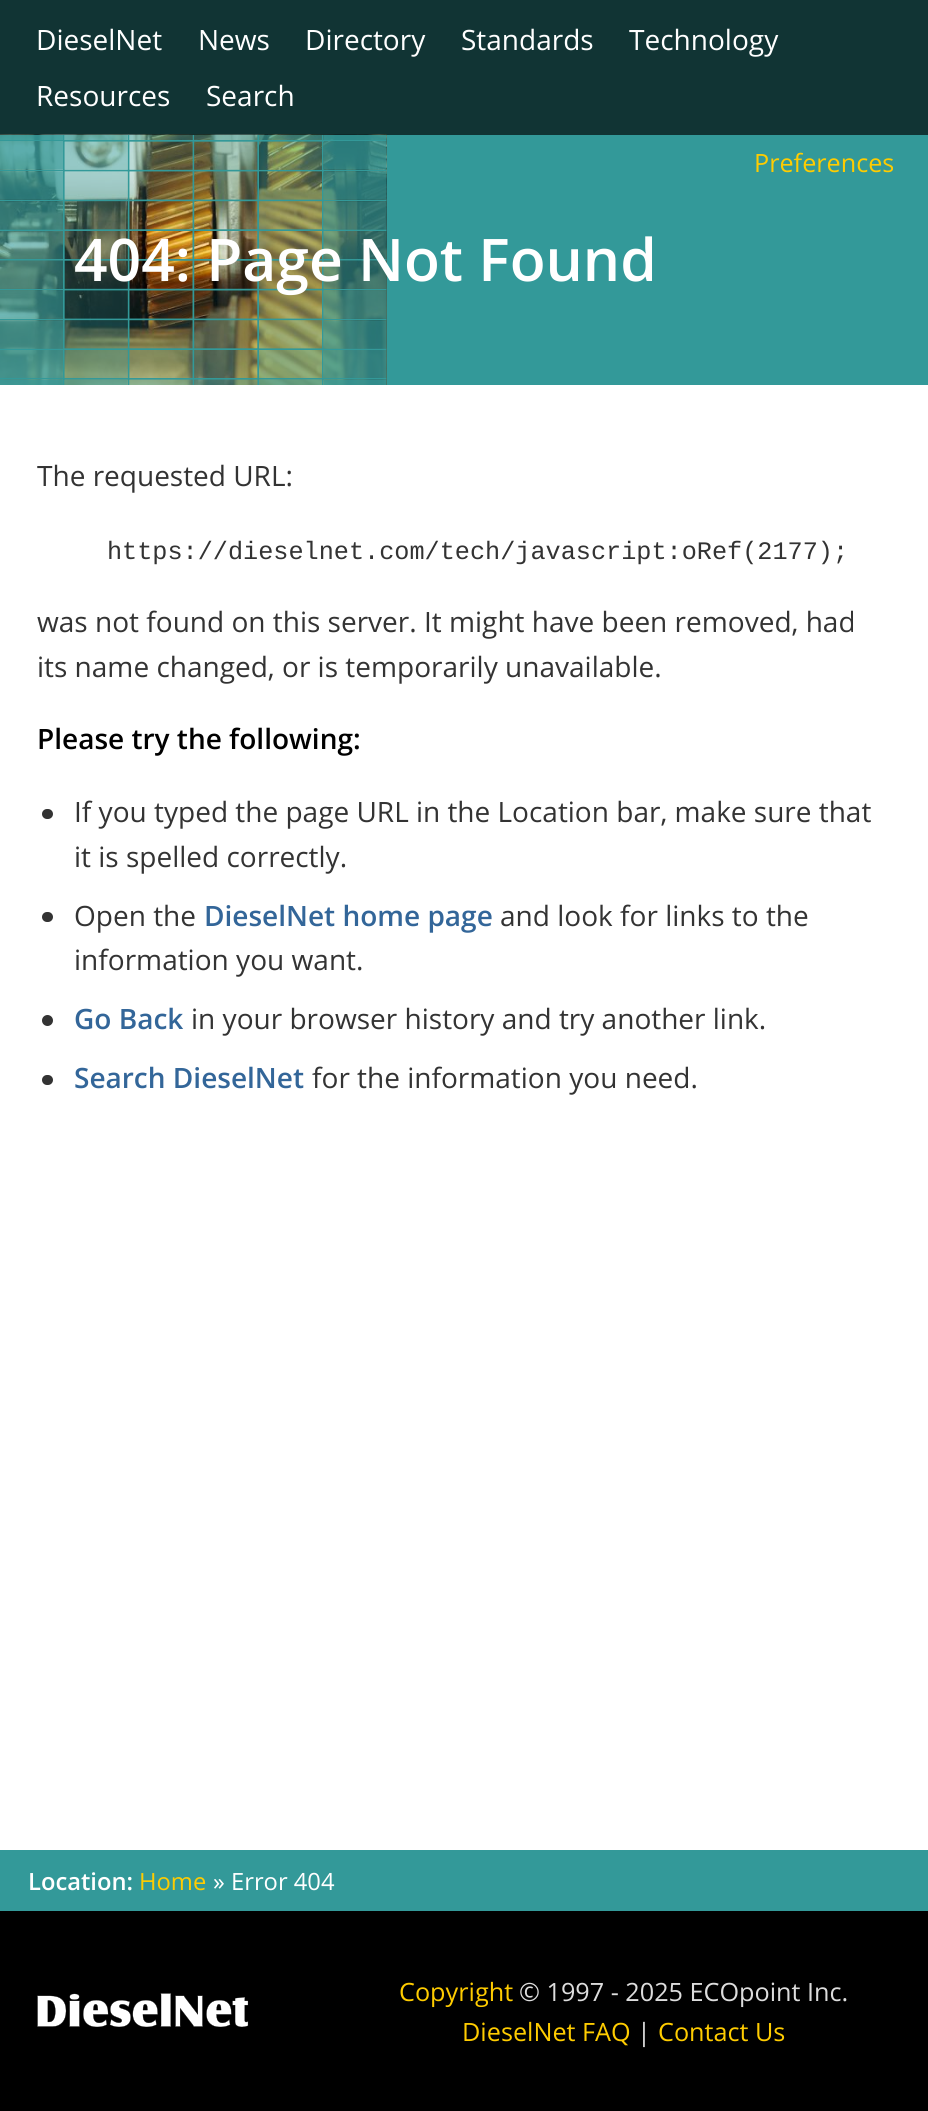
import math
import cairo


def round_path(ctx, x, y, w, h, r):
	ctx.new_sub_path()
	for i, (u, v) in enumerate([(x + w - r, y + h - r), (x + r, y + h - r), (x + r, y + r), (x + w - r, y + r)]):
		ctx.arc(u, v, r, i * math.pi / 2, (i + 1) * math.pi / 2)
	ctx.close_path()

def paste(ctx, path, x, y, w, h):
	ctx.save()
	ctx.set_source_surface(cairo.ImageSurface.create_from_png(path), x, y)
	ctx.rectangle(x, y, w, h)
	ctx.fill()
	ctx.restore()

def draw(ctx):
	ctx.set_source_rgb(0.2, 0.6, 0.6)
	ctx.paint()
	ctx.set_source_rgb(0.067, 0.204, 0.204)
	ctx.rectangle(0, 0, 928, 135)
	ctx.fill()
	ctx.select_font_face('Open Sans')
	ctx.set_font_size(28)
	ctx.set_source_rgb(1, 1, 1)
	for x, y, s in [
		(36, 50, 'DieselNet'),
		(198, 50, 'News'),
		(305, 50, 'Directory'),
		(461, 50, 'Standards'),
		(629, 50, 'Technology'),
		(36, 106, 'Resources'),
		(206, 106, 'Search'),
	]:
		ctx.move_to(x, y)
		ctx.show_text(s)
	paste(ctx, 'media/1.png', 0, 134, 387, 251)
	ctx.set_font_size(25.2)
	ctx.set_source_rgb(1, 0.8, 0)
	ctx.move_to(754, 172)
	ctx.show_text('Preferences')
	ctx.select_font_face('Open Sans SemiBold')
	ctx.set_font_size(58.75)
	ctx.set_source_rgb(1, 1, 1)
	ctx.move_to(74, 281)
	ctx.show_text('404: Page Not Found')
	ctx.rectangle(0, 385, 928, 1465)
	ctx.fill()
	ctx.select_font_face('Open Sans')
	ctx.set_font_size(28)
	ctx.set_source_rgb(0.2, 0.2, 0.2)
	ctx.move_to(37, 486)
	ctx.show_text('The requested URL:')
	ctx.select_font_face('Liberation Mono')
	ctx.set_font_size(25.2)
	ctx.move_to(107, 559)
	ctx.show_text('https://dieselnet.com/tech/javascript:oRef(2177);')
	ctx.select_font_face('Open Sans')
	ctx.set_font_size(28)
	ctx.move_to(37, 632)
	ctx.show_text('was not found on this server. It might have been removed, had')
	ctx.move_to(37, 677)
	ctx.show_text('its name changed, or is temporarily unavailable.')
	ctx.select_font_face('Open Sans SemiBold')
	ctx.set_source_rgb(0, 0, 0)
	ctx.move_to(37, 749)
	ctx.show_text('Please try the following:')
	ctx.set_source_rgb(0.2, 0.2, 0.2)
	round_path(ctx, 42, 809, 11, 10, 5)
	ctx.fill()
	ctx.select_font_face('Open Sans')
	ctx.move_to(74, 822)
	ctx.show_text('If you typed the page URL in the Location bar, make sure that')
	ctx.move_to(74, 867)
	ctx.show_text('it is spelled correctly.')
	round_path(ctx, 42, 912, 11, 10, 5)
	ctx.fill()
	ctx.move_to(74, 926)
	ctx.show_text('Open the')
	ctx.select_font_face('Open Sans SemiBold')
	ctx.set_source_rgb(0.2, 0.4, 0.6)
	ctx.move_to(204, 926)
	ctx.show_text('DieselNet home page')
	ctx.select_font_face('Open Sans')
	ctx.set_source_rgb(0.2, 0.2, 0.2)
	ctx.move_to(500, 926)
	ctx.show_text('and look for links to the')
	ctx.move_to(74, 970)
	ctx.show_text('information you want.')
	ctx.new_path()
	ctx.arc(47.5, 1020.5, 5.5, 0, 2 * math.pi)
	ctx.fill()
	ctx.select_font_face('Open Sans SemiBold')
	ctx.set_source_rgb(0.2, 0.4, 0.6)
	ctx.move_to(74, 1029)
	ctx.show_text('Go Back')
	ctx.select_font_face('Open Sans')
	ctx.set_source_rgb(0.2, 0.2, 0.2)
	ctx.move_to(191, 1029)
	ctx.show_text('in your browser history and try another link.')
	round_path(ctx, 42, 1075, 11, 10, 5)
	ctx.fill()
	ctx.select_font_face('Open Sans SemiBold')
	ctx.set_source_rgb(0.2, 0.4, 0.6)
	ctx.move_to(74, 1088)
	ctx.show_text('Search DieselNet')
	ctx.select_font_face('Open Sans')
	ctx.set_source_rgb(0.2, 0.2, 0.2)
	ctx.move_to(312, 1088)
	ctx.show_text('for the information you need.')
	ctx.set_source_rgb(0, 0, 0)
	ctx.rectangle(0, 1911, 928, 200)
	ctx.fill()
	ctx.select_font_face('Open Sans SemiBold')
	ctx.set_font_size(23.75)
	ctx.set_source_rgb(1, 1, 1)
	ctx.move_to(28, 1890)
	ctx.show_text('Location:')
	ctx.select_font_face('Open Sans')
	ctx.set_source_rgb(1, 0.8, 0)
	ctx.move_to(139, 1890)
	ctx.show_text('Home')
	ctx.set_source_rgb(1, 1, 1)
	ctx.move_to(213, 1890)
	ctx.show_text('» Error 404')
	paste(ctx, 'media/2.png', 37, 1993, 212, 34)
	ctx.set_font_size(25.2)
	ctx.set_source_rgb(1, 0.8, 0)
	ctx.move_to(399, 2001)
	ctx.show_text('Copyright')
	ctx.set_source_rgb(0.867, 0.867, 0.867)
	ctx.move_to(519, 2001)
	ctx.show_text('© 1997 - 2025 ECOpoint Inc.')
	ctx.set_source_rgb(1, 0.8, 0)
	ctx.move_to(462, 2041)
	ctx.show_text('DieselNet FAQ')
	ctx.set_source_rgb(0.867, 0.867, 0.867)
	ctx.move_to(637, 2041)
	ctx.show_text('|')
	ctx.set_source_rgb(1, 0.8, 0)
	ctx.move_to(658, 2041)
	ctx.show_text('Contact Us')


surface = cairo.ImageSurface(cairo.FORMAT_RGB24, 928, 2111)
ctx = cairo.Context(surface)
options = cairo.FontOptions()
options.set_hint_metrics(cairo.HINT_METRICS_OFF)
options.set_hint_style(cairo.HINT_STYLE_NONE)
ctx.set_font_options(options)
ctx.set_miter_limit(4)
draw(ctx)
surface.write_to_png('image.png')
